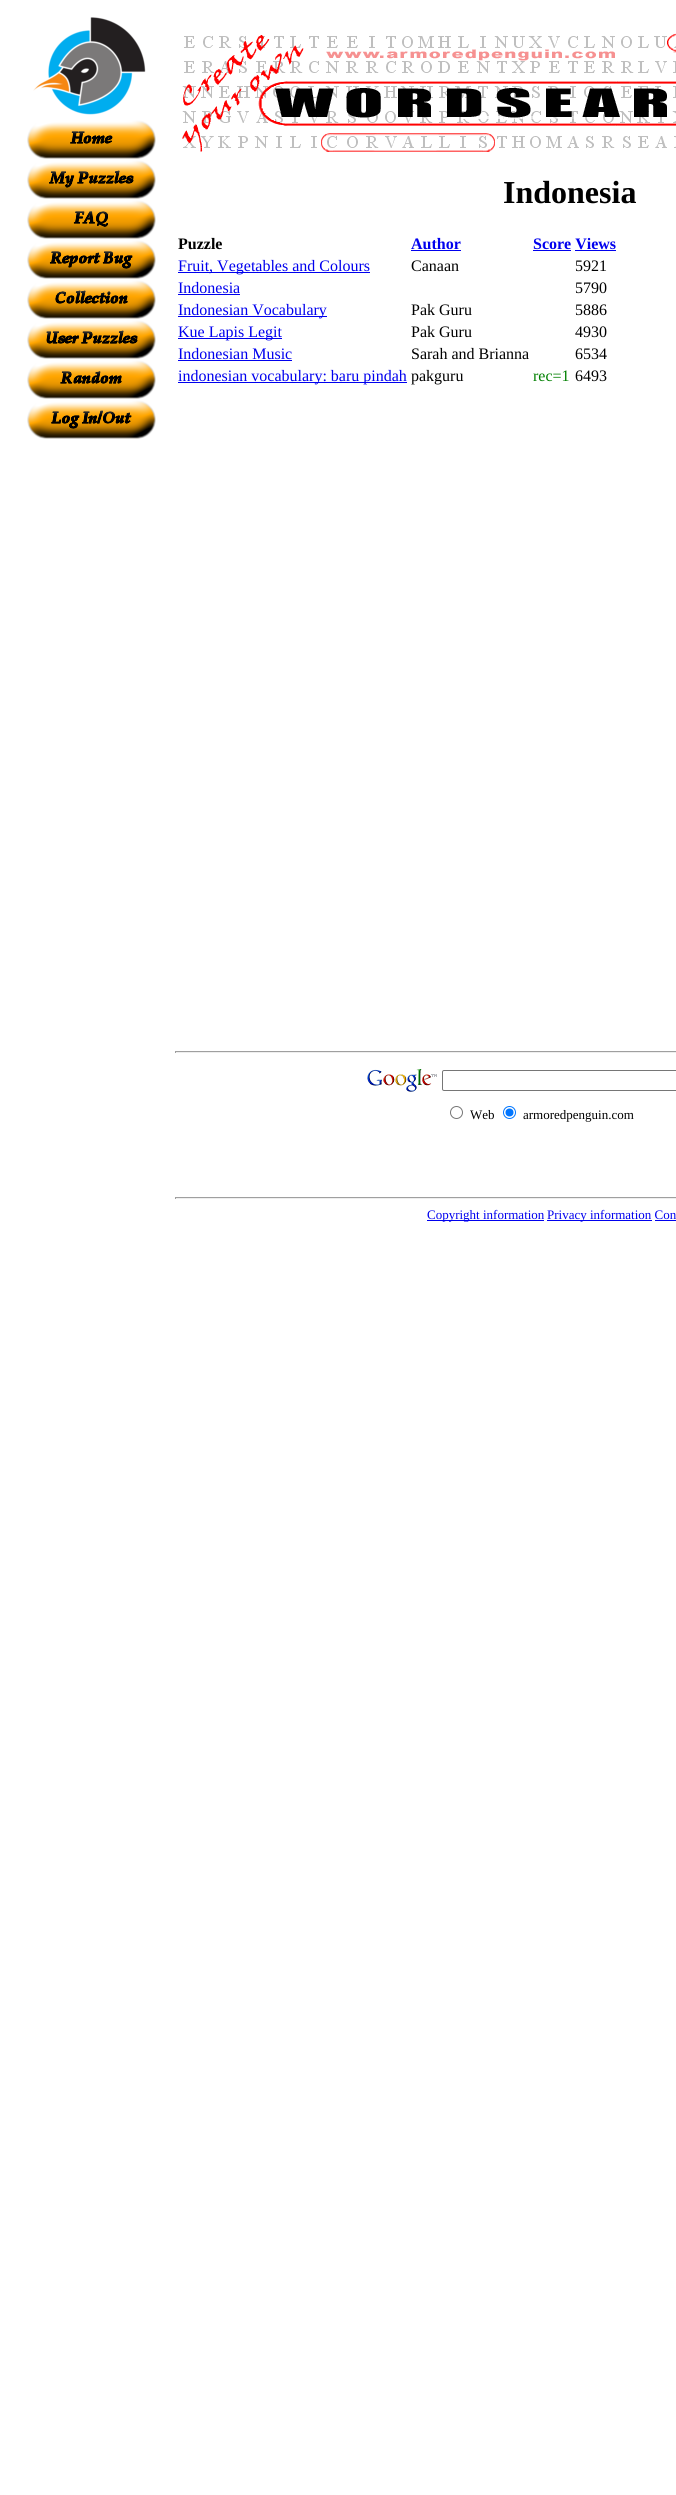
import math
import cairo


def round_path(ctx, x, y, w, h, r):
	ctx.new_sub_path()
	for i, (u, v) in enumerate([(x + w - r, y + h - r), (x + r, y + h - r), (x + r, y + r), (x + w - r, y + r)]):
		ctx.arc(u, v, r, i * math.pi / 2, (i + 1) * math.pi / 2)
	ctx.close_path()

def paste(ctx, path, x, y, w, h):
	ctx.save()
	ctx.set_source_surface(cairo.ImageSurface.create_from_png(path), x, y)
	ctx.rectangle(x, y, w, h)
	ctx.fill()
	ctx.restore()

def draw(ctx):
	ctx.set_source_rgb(1, 1, 1)
	ctx.paint()
	paste(ctx, 'media/1.png', 33, 17, 113, 98)
	paste(ctx, 'media/2.png', 27, 120, 129, 39)
	paste(ctx, 'media/3.png', 27, 160, 129, 39)
	paste(ctx, 'media/4.png', 27, 200, 129, 39)
	paste(ctx, 'media/5.png', 27, 240, 129, 39)
	paste(ctx, 'media/6.png', 27, 280, 129, 39)
	paste(ctx, 'media/7.png', 27, 320, 129, 39)
	paste(ctx, 'media/8.png', 27, 360, 129, 39)
	paste(ctx, 'media/9.png', 27, 400, 129, 39)
	paste(ctx, 'media/10.png', 182, 33, 494, 119)
	ctx.select_font_face('Liberation Serif', cairo.FONT_SLANT_NORMAL, cairo.FONT_WEIGHT_BOLD)
	ctx.set_font_size(32)
	ctx.set_source_rgb(0, 0, 0)
	ctx.move_to(503, 203)
	ctx.show_text('Indonesia')
	ctx.set_font_size(16)
	ctx.move_to(178, 249)
	ctx.show_text('Puzzle')
	ctx.set_source_rgb(0, 0, 0.933)
	ctx.move_to(411, 249)
	ctx.show_text('Author')
	ctx.rectangle(411, 250, 50, 1)
	ctx.fill()
	ctx.move_to(533, 249)
	ctx.show_text('Score Views')
	ctx.rectangle(533, 250, 38, 1)
	ctx.rectangle(575, 250, 41, 1)
	ctx.rectangle(178, 272, 192, 1)
	ctx.fill()
	ctx.select_font_face('Liberation Serif')
	ctx.move_to(178, 271)
	ctx.show_text('Fruit, Vegetables and Colours')
	ctx.set_source_rgb(0, 0, 0)
	ctx.move_to(411, 271)
	ctx.show_text('Canaan')
	ctx.move_to(575, 271)
	ctx.show_text('5921')
	ctx.set_source_rgb(0, 0, 0.933)
	ctx.move_to(178, 293)
	ctx.show_text('Indonesia')
	ctx.rectangle(178, 294, 62, 1)
	ctx.fill()
	ctx.set_source_rgb(0, 0, 0)
	ctx.move_to(575, 293)
	ctx.show_text('5790')
	ctx.set_source_rgb(0, 0, 0.933)
	ctx.rectangle(178, 316, 149, 1)
	ctx.fill()
	ctx.move_to(178, 315)
	ctx.show_text('Indonesian Vocabulary')
	ctx.set_source_rgb(0, 0, 0)
	ctx.move_to(411, 315)
	ctx.show_text('Pak Guru')
	ctx.move_to(575, 315)
	ctx.show_text('5886')
	ctx.set_source_rgb(0, 0, 0.933)
	ctx.rectangle(178, 338, 104, 1)
	ctx.fill()
	ctx.move_to(178, 337)
	ctx.show_text('Kue Lapis Legit')
	ctx.set_source_rgb(0, 0, 0)
	ctx.move_to(411, 337)
	ctx.show_text('Pak Guru')
	ctx.move_to(575, 337)
	ctx.show_text('4930')
	ctx.set_source_rgb(0, 0, 0.933)
	ctx.move_to(178, 359)
	ctx.show_text('Indonesian Music')
	ctx.rectangle(178, 360, 114, 1)
	ctx.fill()
	ctx.set_source_rgb(0, 0, 0)
	ctx.move_to(411, 359)
	ctx.show_text('Sarah and Brianna')
	ctx.move_to(575, 359)
	ctx.show_text('6534')
	ctx.set_source_rgb(0, 0, 0.933)
	ctx.rectangle(178, 382, 229, 1)
	ctx.fill()
	ctx.move_to(178, 381)
	ctx.show_text('indonesian vocabulary: baru pindah')
	ctx.set_source_rgb(0, 0, 0)
	ctx.move_to(411, 381)
	ctx.show_text('pakguru')
	ctx.set_source_rgb(0, 0.502, 0)
	ctx.move_to(533, 381)
	ctx.show_text('rec=1')
	ctx.set_source_rgb(0, 0, 0)
	ctx.move_to(575, 381)
	ctx.show_text('6493')
	ctx.set_source_rgb(0.624, 0.624, 0.624)
	ctx.rectangle(175, 1051, 501, 1)
	ctx.fill()
	ctx.set_source_rgb(0.933, 0.933, 0.933)
	ctx.rectangle(175, 1052, 501, 1)
	ctx.fill()
	ctx.set_source_rgb(0.624, 0.624, 0.624)
	ctx.rectangle(175, 1051, 1, 2)
	ctx.fill()
	paste(ctx, 'media/11.png', 367, 1069, 70, 23)
	round_path(ctx, 442.5, 1070.5, 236, 20, 1.5)
	ctx.set_source_rgb(0.463, 0.463, 0.463)
	ctx.set_line_width(1)
	ctx.stroke()
	ctx.arc(456.5, 1112.5, 6, 0, 2 * math.pi)
	ctx.stroke()
	ctx.set_font_size(13)
	ctx.set_source_rgb(0, 0, 0)
	ctx.move_to(470, 1119)
	ctx.show_text('Web')
	ctx.new_path()
	ctx.arc(509.5, 1112.5, 6, 0, 2 * math.pi)
	ctx.set_source_rgb(0, 0.459, 1)
	ctx.stroke()
	ctx.arc(509.5, 1112.5, 4, 0, 2 * math.pi)
	ctx.fill()
	ctx.set_source_rgb(0, 0, 0)
	ctx.move_to(523, 1119)
	ctx.show_text('armoredpenguin.com')
	ctx.set_source_rgb(0.624, 0.624, 0.624)
	ctx.rectangle(175, 1197, 501, 1)
	ctx.fill()
	ctx.set_source_rgb(0.933, 0.933, 0.933)
	ctx.rectangle(175, 1198, 501, 1)
	ctx.fill()
	ctx.set_source_rgb(0.624, 0.624, 0.624)
	ctx.rectangle(175, 1197, 1, 2)
	ctx.fill()
	ctx.set_source_rgb(0, 0, 0.933)
	ctx.rectangle(427, 1220, 117, 1)
	ctx.fill()
	ctx.move_to(427, 1219)
	ctx.show_text('Copyright information')
	ctx.rectangle(547, 1220, 105, 1)
	ctx.fill()
	ctx.move_to(547, 1219)
	ctx.show_text('Privacy information Con')
	ctx.rectangle(655, 1220, 21, 1)
	ctx.fill()


surface = cairo.ImageSurface(cairo.FORMAT_RGB24, 676, 2495)
ctx = cairo.Context(surface)
options = cairo.FontOptions()
options.set_hint_metrics(cairo.HINT_METRICS_OFF)
options.set_hint_style(cairo.HINT_STYLE_NONE)
ctx.set_font_options(options)
ctx.set_miter_limit(4)
draw(ctx)
surface.write_to_png('image.png')
